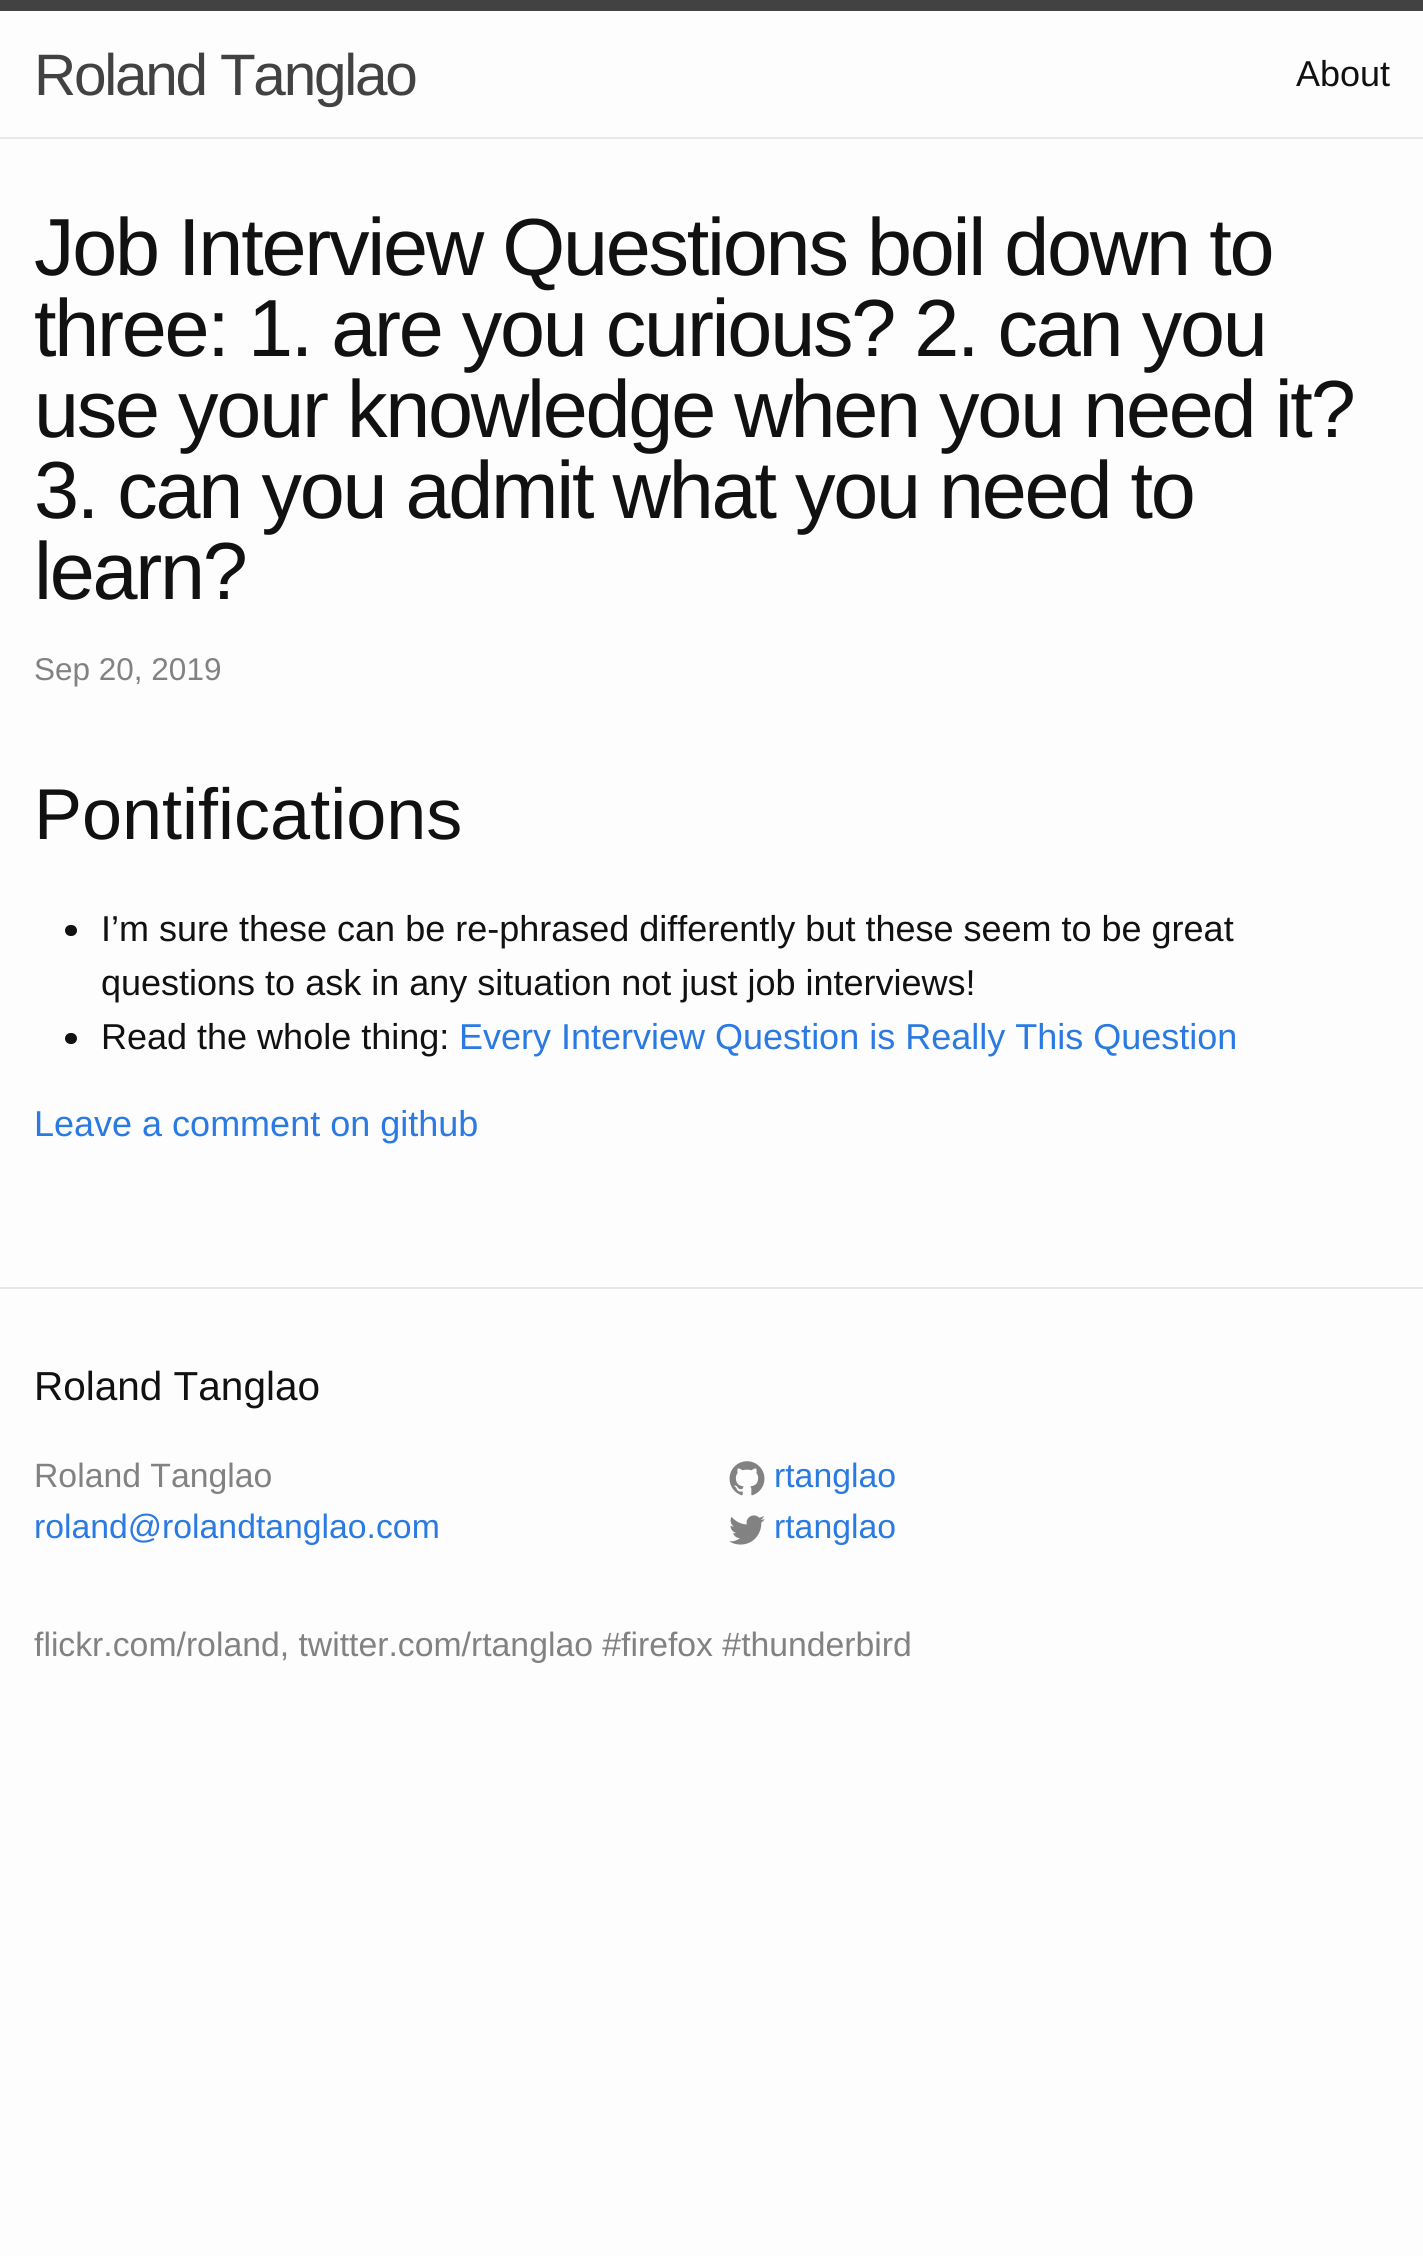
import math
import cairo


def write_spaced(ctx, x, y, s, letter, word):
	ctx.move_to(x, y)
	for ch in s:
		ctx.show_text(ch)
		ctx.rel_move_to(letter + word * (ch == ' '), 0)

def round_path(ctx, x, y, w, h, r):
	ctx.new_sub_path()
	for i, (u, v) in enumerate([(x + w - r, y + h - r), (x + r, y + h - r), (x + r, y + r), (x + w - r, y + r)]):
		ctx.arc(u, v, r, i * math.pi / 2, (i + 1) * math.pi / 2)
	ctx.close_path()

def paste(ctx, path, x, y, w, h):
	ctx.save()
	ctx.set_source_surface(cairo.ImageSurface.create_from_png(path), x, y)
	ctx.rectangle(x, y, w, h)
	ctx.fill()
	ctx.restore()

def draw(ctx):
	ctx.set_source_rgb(0.992, 0.992, 0.992)
	ctx.paint()
	ctx.set_source_rgb(0.259, 0.259, 0.259)
	ctx.rectangle(0, 0, 1423, 11)
	ctx.fill()
	ctx.set_source_rgb(0.91, 0.91, 0.91)
	ctx.rectangle(0, 137, 1423, 2)
	ctx.fill()
	ctx.select_font_face('Liberation Sans')
	ctx.set_font_size(58.5)
	ctx.set_source_rgb(0.259, 0.259, 0.259)
	write_spaced(ctx, 34, 95, 'Roland Tanglao', -2.25, 0)
	ctx.set_font_size(36)
	ctx.set_source_rgb(0.067, 0.067, 0.067)
	ctx.move_to(1296, 86)
	ctx.show_text('About')
	ctx.set_font_size(81)
	for x, y, s in [
		(34, 275, 'Job Interview Questions boil down to'),
		(34, 356, 'three: 1. are you curious? 2. can you'),
		(34, 437, 'use your knowledge when you need it?'),
		(34, 518, '3. can you admit what you need to'),
		(34, 599, 'learn?'),
	]:
		write_spaced(ctx, x, y, s, -2.25, 0)
	ctx.set_font_size(31.5)
	ctx.set_source_rgb(0.51, 0.51, 0.51)
	ctx.move_to(34, 680)
	ctx.show_text('Sep 20, 2019')
	ctx.set_font_size(72)
	ctx.set_source_rgb(0.067, 0.067, 0.067)
	ctx.move_to(34, 839)
	ctx.show_text('Pontifications')
	round_path(ctx, 65, 925, 12, 11, 5.5)
	ctx.fill()
	ctx.set_font_size(36)
	ctx.move_to(101, 941)
	ctx.show_text('I’m sure these can be re-phrased differently but these seem to be great')
	ctx.move_to(101, 995)
	ctx.show_text('questions to ask in any situation not just job interviews!')
	round_path(ctx, 65, 1033, 12, 11, 5.5)
	ctx.fill()
	ctx.move_to(101, 1049)
	ctx.show_text('Read the whole thing:')
	ctx.set_source_rgb(0.165, 0.478, 0.886)
	ctx.move_to(459, 1049)
	ctx.show_text('Every Interview Question is Really This Question')
	ctx.move_to(34, 1136)
	ctx.show_text('Leave a comment on github')
	ctx.set_source_rgb(0.91, 0.91, 0.91)
	ctx.rectangle(0, 1287, 1423, 2)
	ctx.fill()
	ctx.set_font_size(40.5)
	ctx.set_source_rgb(0.067, 0.067, 0.067)
	ctx.move_to(34, 1400)
	ctx.show_text('Roland Tanglao')
	ctx.set_font_size(33.75)
	ctx.set_source_rgb(0.51, 0.51, 0.51)
	ctx.move_to(34, 1487)
	ctx.show_text('Roland Tanglao')
	ctx.set_source_rgb(0.165, 0.478, 0.886)
	ctx.move_to(34, 1538)
	ctx.show_text('roland@rolandtanglao.com')
	paste(ctx, 'media/1.png', 729, 1461, 36, 35)
	ctx.move_to(774, 1487)
	ctx.show_text('rtanglao')
	paste(ctx, 'media/2.png', 729, 1515, 36, 30)
	ctx.move_to(774, 1538)
	ctx.show_text('rtanglao')
	ctx.set_source_rgb(0.51, 0.51, 0.51)
	ctx.move_to(34, 1656)
	ctx.show_text('flickr.com/roland, twitter.com/rtanglao #firefox #thunderbird')


surface = cairo.ImageSurface(cairo.FORMAT_RGB24, 1423, 2256)
ctx = cairo.Context(surface)
options = cairo.FontOptions()
options.set_hint_metrics(cairo.HINT_METRICS_OFF)
options.set_hint_style(cairo.HINT_STYLE_NONE)
ctx.set_font_options(options)
ctx.set_miter_limit(4)
draw(ctx)
surface.write_to_png('image.png')
